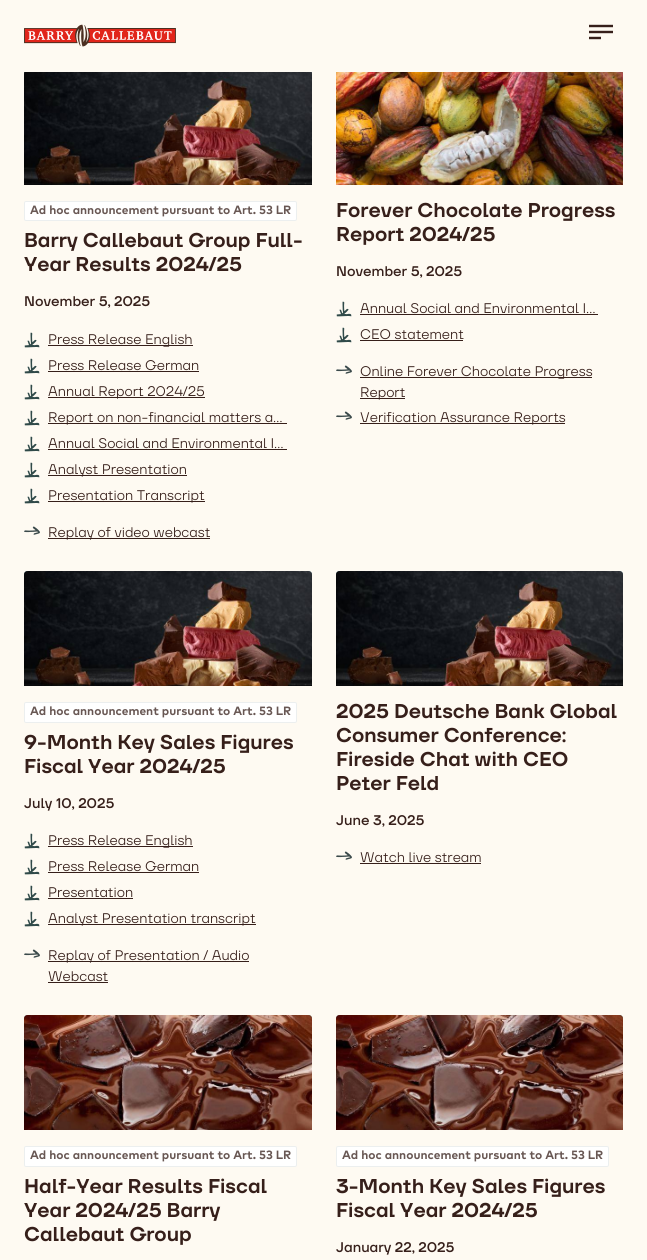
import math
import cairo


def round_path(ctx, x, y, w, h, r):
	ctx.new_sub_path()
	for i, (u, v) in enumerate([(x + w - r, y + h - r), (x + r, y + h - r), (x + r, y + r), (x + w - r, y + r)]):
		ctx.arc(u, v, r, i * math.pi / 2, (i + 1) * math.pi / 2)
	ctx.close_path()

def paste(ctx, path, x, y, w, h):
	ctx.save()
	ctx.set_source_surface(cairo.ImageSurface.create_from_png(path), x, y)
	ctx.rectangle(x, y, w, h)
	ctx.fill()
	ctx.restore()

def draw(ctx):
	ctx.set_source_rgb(0.996, 0.98, 0.949)
	ctx.paint()
	paste(ctx, 'media/1.png', 24, 24, 152, 23)
	paste(ctx, 'media/2.png', 589, 24, 24, 16)
	paste(ctx, 'media/3.png', 24, 72, 288, 2)
	paste(ctx, 'media/4.png', 24, 72, 288, 113)
	ctx.set_source_rgb(1, 1, 1)
	round_path(ctx, 24.5, 201.5, 272, 19, 1.5)
	ctx.fill_preserve()
	ctx.set_source_rgb(0.922, 0.937, 0.937)
	ctx.set_line_width(1)
	ctx.stroke()
	ctx.select_font_face('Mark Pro', cairo.FONT_SLANT_NORMAL, cairo.FONT_WEIGHT_BOLD)
	ctx.set_font_size(12)
	ctx.set_source_rgb(0.408, 0.341, 0.325)
	ctx.move_to(30, 214)
	ctx.show_text('Ad hoc announcement pursuant to Art. 53 LR')
	ctx.select_font_face('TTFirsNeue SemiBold')
	ctx.set_font_size(20)
	ctx.set_source_rgb(0.212, 0.122, 0.102)
	ctx.move_to(24, 247)
	ctx.show_text('Barry Callebaut Group Full-')
	ctx.move_to(24, 271)
	ctx.show_text('Year Results 2024/25')
	ctx.select_font_face('TTFirsNeue Medium')
	ctx.set_font_size(14)
	ctx.move_to(24, 306)
	ctx.show_text('November 5, 2025')
	paste(ctx, 'media/5.png', 24, 332, 16, 16)
	ctx.rectangle(48, 345, 145, 1)
	ctx.fill()
	ctx.select_font_face('TTFirsNeue')
	ctx.move_to(48, 344)
	ctx.show_text('Press Release English')
	paste(ctx, 'media/5.png', 24, 358, 16, 16)
	ctx.move_to(48, 370)
	ctx.show_text('Press Release German')
	ctx.rectangle(48, 371, 151, 1)
	ctx.fill()
	paste(ctx, 'media/5.png', 24, 384, 16, 16)
	ctx.rectangle(48, 397, 157, 1)
	ctx.fill()
	ctx.move_to(48, 396)
	ctx.show_text('Annual Report 2024/25')
	paste(ctx, 'media/5.png', 24, 410, 16, 16)
	ctx.rectangle(48, 423, 239, 1)
	ctx.fill()
	ctx.move_to(48, 422)
	ctx.show_text('Report on non-financial matters a…')
	paste(ctx, 'media/5.png', 24, 436, 16, 16)
	ctx.move_to(48, 448)
	ctx.show_text('Annual Social and Environmental I…')
	ctx.rectangle(48, 449, 239, 1)
	ctx.fill()
	paste(ctx, 'media/5.png', 24, 462, 16, 16)
	ctx.rectangle(48, 475, 139, 1)
	ctx.fill()
	ctx.move_to(48, 474)
	ctx.show_text('Analyst Presentation')
	paste(ctx, 'media/5.png', 24, 488, 16, 16)
	ctx.rectangle(48, 501, 157, 1)
	ctx.fill()
	ctx.move_to(48, 500)
	ctx.show_text('Presentation Transcript')
	paste(ctx, 'media/6.png', 24, 526, 16, 9)
	ctx.rectangle(48, 538, 162, 1)
	ctx.fill()
	ctx.move_to(48, 537)
	ctx.show_text('Replay of video webcast')
	paste(ctx, 'media/7.png', 336, 72, 287, 2)
	paste(ctx, 'media/8.png', 336, 72, 287, 113)
	ctx.select_font_face('TTFirsNeue SemiBold')
	ctx.set_font_size(20)
	ctx.move_to(336, 217)
	ctx.show_text('Forever Chocolate Progress')
	ctx.move_to(336, 241)
	ctx.show_text('Report 2024/25')
	ctx.select_font_face('TTFirsNeue Medium')
	ctx.set_font_size(14)
	ctx.move_to(336, 276)
	ctx.show_text('November 5, 2025')
	paste(ctx, 'media/5.png', 336, 301, 16, 16)
	ctx.select_font_face('TTFirsNeue')
	ctx.move_to(360, 313)
	ctx.show_text('Annual Social and Environmental I…')
	ctx.rectangle(360, 314, 238, 1)
	ctx.fill()
	paste(ctx, 'media/5.png', 336, 327, 16, 16)
	ctx.move_to(360, 339)
	ctx.show_text('CEO statement')
	ctx.rectangle(360, 340, 103, 1)
	ctx.fill()
	paste(ctx, 'media/6.png', 336, 365, 16, 9)
	ctx.rectangle(360, 377, 232, 1)
	ctx.fill()
	ctx.move_to(360, 376)
	ctx.show_text('Online Forever Chocolate Progress')
	ctx.rectangle(360, 398, 45, 1)
	ctx.fill()
	ctx.move_to(360, 397)
	ctx.show_text('Report')
	paste(ctx, 'media/6.png', 336, 411, 16, 9)
	ctx.rectangle(360, 423, 205, 1)
	ctx.fill()
	ctx.move_to(360, 422)
	ctx.show_text('Verification Assurance Reports')
	paste(ctx, 'media/9.png', 24, 571, 288, 4)
	paste(ctx, 'media/10.png', 24, 571, 288, 115)
	ctx.set_source_rgb(1, 1, 1)
	round_path(ctx, 24.5, 702.5, 272, 20, 1.5)
	ctx.fill_preserve()
	ctx.set_source_rgb(0.922, 0.937, 0.937)
	ctx.stroke()
	ctx.select_font_face('Mark Pro', cairo.FONT_SLANT_NORMAL, cairo.FONT_WEIGHT_BOLD)
	ctx.set_font_size(12)
	ctx.set_source_rgb(0.408, 0.341, 0.325)
	ctx.move_to(30, 715)
	ctx.show_text('Ad hoc announcement pursuant to Art. 53 LR')
	ctx.select_font_face('TTFirsNeue SemiBold')
	ctx.set_font_size(20)
	ctx.set_source_rgb(0.212, 0.122, 0.102)
	ctx.move_to(24, 749)
	ctx.show_text('9-Month Key Sales Figures')
	ctx.move_to(24, 773)
	ctx.show_text('Fiscal Year 2024/25')
	ctx.select_font_face('TTFirsNeue Medium')
	ctx.set_font_size(14)
	ctx.move_to(24, 808)
	ctx.show_text('July 10, 2025')
	paste(ctx, 'media/5.png', 24, 833, 16, 16)
	ctx.rectangle(48, 846, 145, 1)
	ctx.fill()
	ctx.select_font_face('TTFirsNeue')
	ctx.move_to(48, 845)
	ctx.show_text('Press Release English')
	paste(ctx, 'media/5.png', 24, 859, 16, 16)
	ctx.move_to(48, 871)
	ctx.show_text('Press Release German')
	ctx.rectangle(48, 872, 151, 1)
	ctx.fill()
	paste(ctx, 'media/5.png', 24, 885, 16, 16)
	ctx.move_to(48, 897)
	ctx.show_text('Presentation')
	ctx.rectangle(48, 898, 85, 1)
	ctx.fill()
	paste(ctx, 'media/5.png', 24, 911, 16, 16)
	ctx.rectangle(48, 924, 208, 1)
	ctx.fill()
	ctx.move_to(48, 923)
	ctx.show_text('Analyst Presentation transcript')
	paste(ctx, 'media/6.png', 24, 949, 16, 9)
	ctx.rectangle(48, 961, 201, 1)
	ctx.fill()
	ctx.move_to(48, 960)
	ctx.show_text('Replay of Presentation / Audio')
	ctx.move_to(48, 981)
	ctx.show_text('Webcast')
	ctx.rectangle(48, 982, 60, 1)
	ctx.fill()
	paste(ctx, 'media/11.png', 336, 571, 287, 4)
	paste(ctx, 'media/12.png', 336, 571, 287, 115)
	ctx.select_font_face('TTFirsNeue SemiBold')
	ctx.set_font_size(20)
	for x, y, s in [
		(336, 718, '2025 Deutsche Bank Global'),
		(336, 742, 'Consumer Conference:'),
		(336, 766, 'Fireside Chat with CEO'),
		(336, 790, 'Peter Feld'),
	]:
		ctx.move_to(x, y)
		ctx.show_text(s)
	ctx.select_font_face('TTFirsNeue Medium')
	ctx.set_font_size(14)
	ctx.move_to(336, 825)
	ctx.show_text('June 3, 2025')
	paste(ctx, 'media/6.png', 336, 851, 16, 9)
	ctx.select_font_face('TTFirsNeue')
	ctx.move_to(360, 862)
	ctx.show_text('Watch live stream')
	ctx.rectangle(360, 863, 121, 1)
	ctx.fill()
	paste(ctx, 'media/9.png', 24, 1015, 288, 4)
	paste(ctx, 'media/13.png', 24, 1015, 288, 115)
	ctx.set_source_rgb(1, 1, 1)
	round_path(ctx, 24.5, 1146.5, 272, 20, 1.5)
	ctx.fill_preserve()
	ctx.set_source_rgb(0.922, 0.937, 0.937)
	ctx.stroke()
	ctx.select_font_face('Mark Pro', cairo.FONT_SLANT_NORMAL, cairo.FONT_WEIGHT_BOLD)
	ctx.set_font_size(12)
	ctx.set_source_rgb(0.408, 0.341, 0.325)
	ctx.move_to(30, 1159)
	ctx.show_text('Ad hoc announcement pursuant to Art. 53 LR')
	ctx.select_font_face('TTFirsNeue SemiBold')
	ctx.set_font_size(20)
	ctx.set_source_rgb(0.212, 0.122, 0.102)
	for x, y, s in [
		(24, 1193, 'Half-Year Results Fiscal'),
		(24, 1217, 'Year 2024/25 Barry'),
		(24, 1241, 'Callebaut Group'),
	]:
		ctx.move_to(x, y)
		ctx.show_text(s)
	paste(ctx, 'media/11.png', 336, 1015, 287, 4)
	paste(ctx, 'media/14.png', 336, 1015, 287, 115)
	ctx.set_source_rgb(1, 1, 1)
	round_path(ctx, 336.5, 1146.5, 272, 20, 1.5)
	ctx.fill_preserve()
	ctx.set_source_rgb(0.922, 0.937, 0.937)
	ctx.stroke()
	ctx.select_font_face('Mark Pro', cairo.FONT_SLANT_NORMAL, cairo.FONT_WEIGHT_BOLD)
	ctx.set_font_size(12)
	ctx.set_source_rgb(0.408, 0.341, 0.325)
	ctx.move_to(342, 1159)
	ctx.show_text('Ad hoc announcement pursuant to Art. 53 LR')
	ctx.select_font_face('TTFirsNeue SemiBold')
	ctx.set_font_size(20)
	ctx.set_source_rgb(0.212, 0.122, 0.102)
	ctx.move_to(336, 1193)
	ctx.show_text('3-Month Key Sales Figures')
	ctx.move_to(336, 1217)
	ctx.show_text('Fiscal Year 2024/25')
	ctx.select_font_face('TTFirsNeue Medium')
	ctx.set_font_size(14)
	ctx.move_to(336, 1252)
	ctx.show_text('January 22, 2025')


surface = cairo.ImageSurface(cairo.FORMAT_RGB24, 647, 1260)
ctx = cairo.Context(surface)
options = cairo.FontOptions()
options.set_hint_metrics(cairo.HINT_METRICS_OFF)
options.set_hint_style(cairo.HINT_STYLE_NONE)
ctx.set_font_options(options)
ctx.set_miter_limit(4)
draw(ctx)
surface.write_to_png('image.png')
